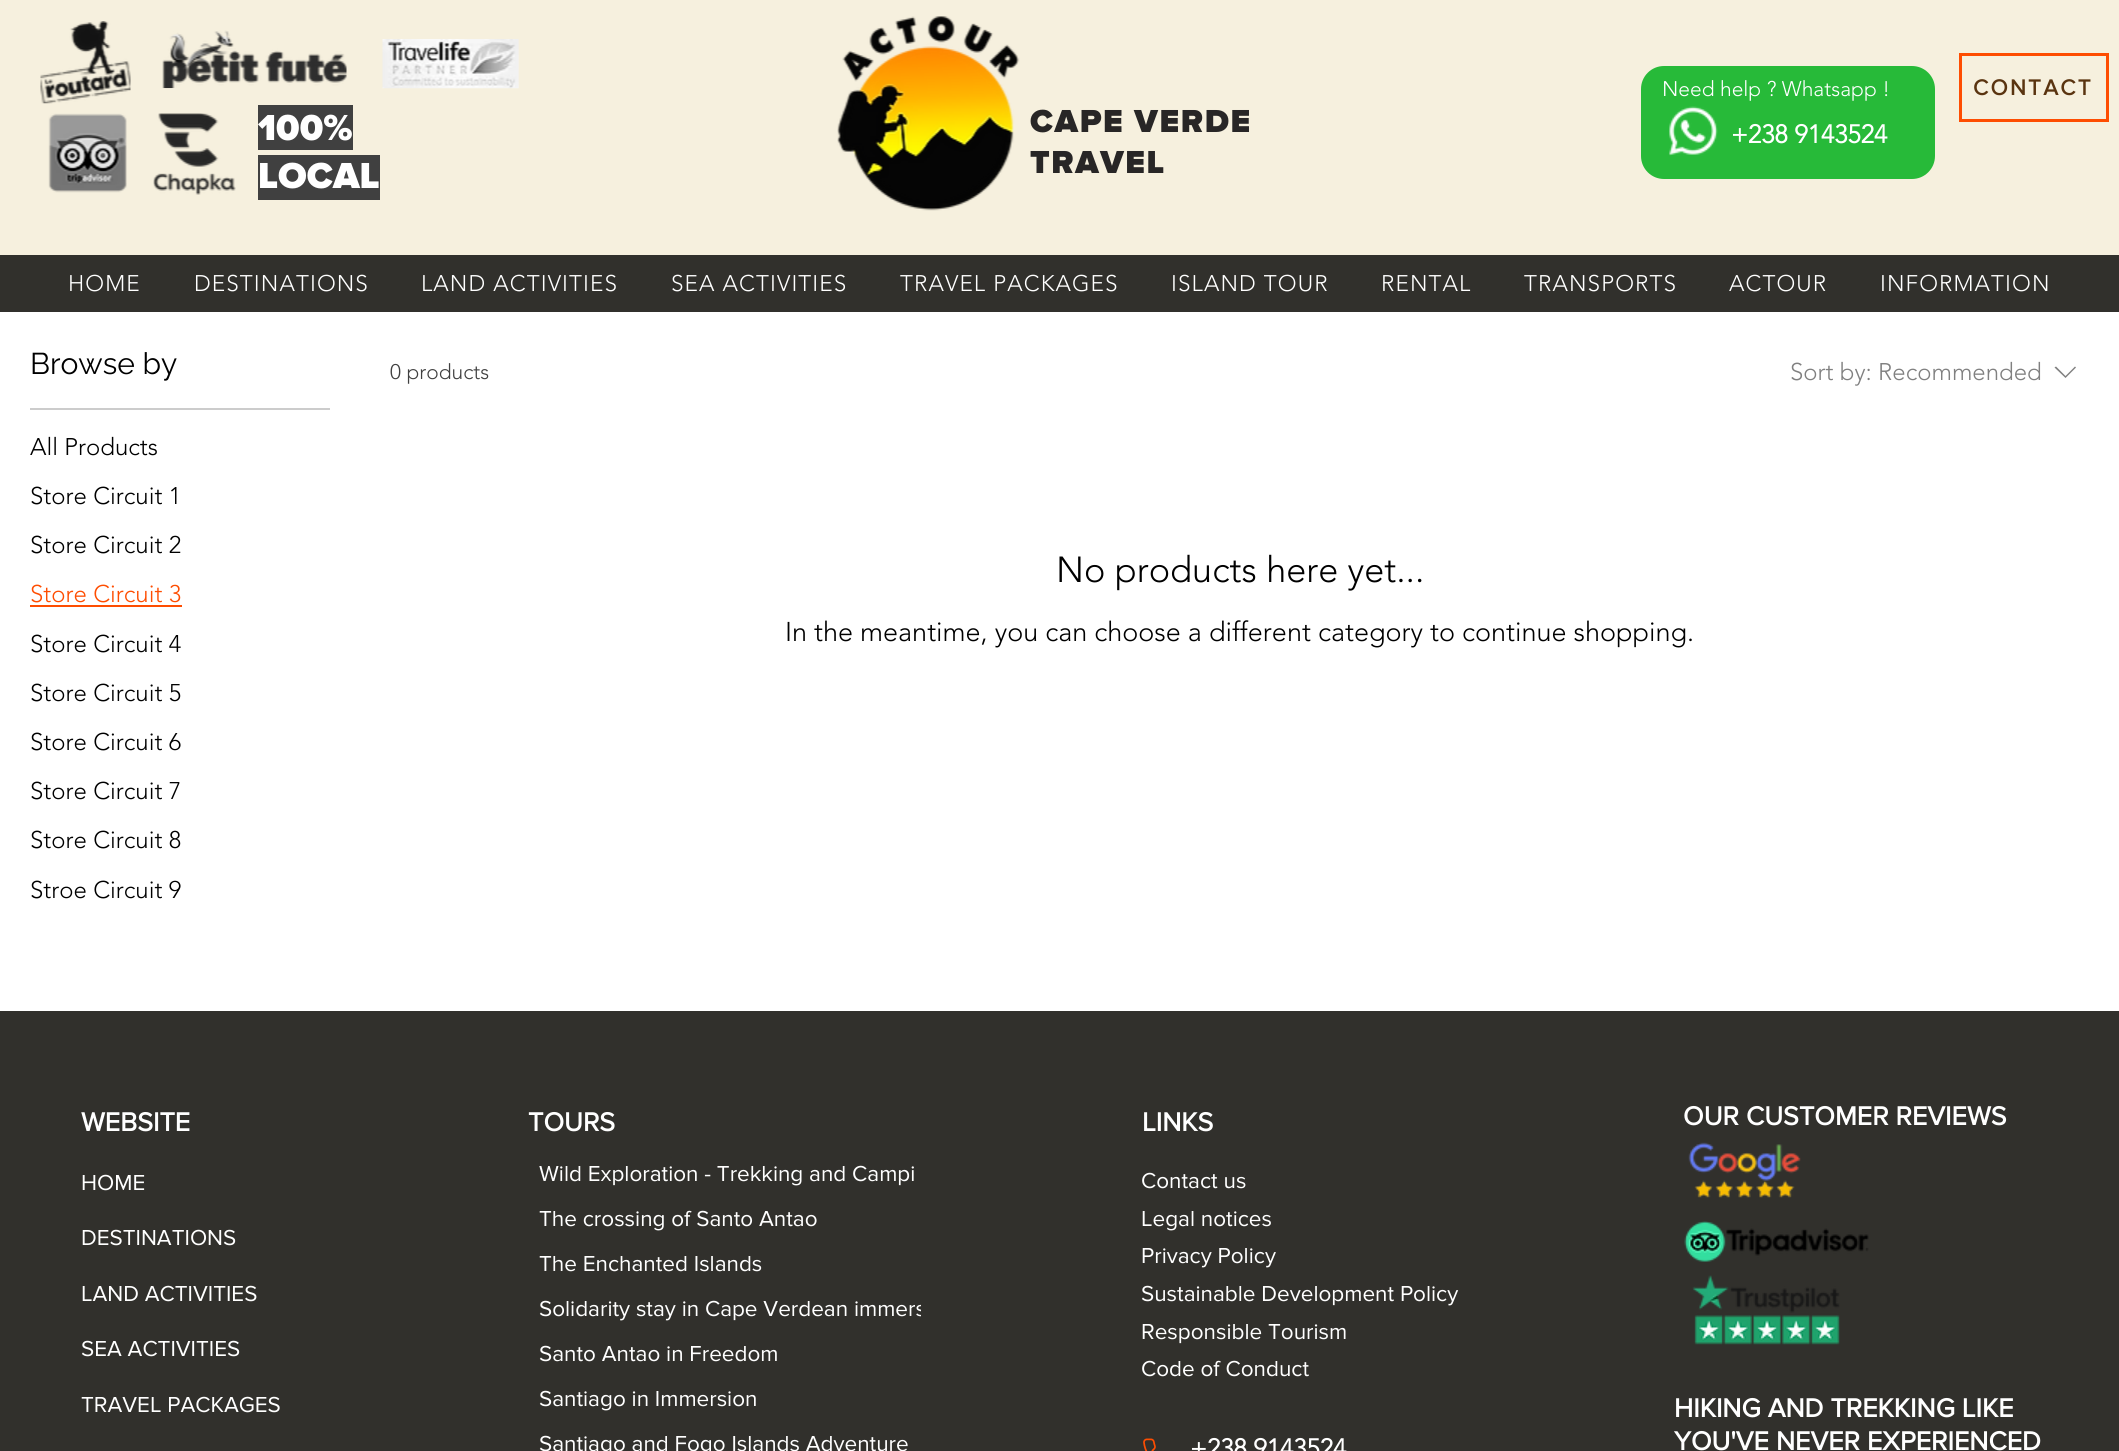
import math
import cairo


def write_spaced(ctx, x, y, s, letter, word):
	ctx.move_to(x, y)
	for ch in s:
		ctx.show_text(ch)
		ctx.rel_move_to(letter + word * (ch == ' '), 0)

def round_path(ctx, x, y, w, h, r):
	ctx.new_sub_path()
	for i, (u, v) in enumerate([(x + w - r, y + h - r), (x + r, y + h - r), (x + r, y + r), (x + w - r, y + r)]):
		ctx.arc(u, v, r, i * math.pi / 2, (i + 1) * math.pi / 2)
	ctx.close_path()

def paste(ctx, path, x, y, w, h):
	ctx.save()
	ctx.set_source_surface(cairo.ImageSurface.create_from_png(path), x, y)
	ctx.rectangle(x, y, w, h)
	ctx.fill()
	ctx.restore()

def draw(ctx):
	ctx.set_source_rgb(1, 1, 1)
	ctx.paint()
	ctx.set_source_rgb(0.961, 0.941, 0.871)
	ctx.rectangle(0, 0, 2119, 255)
	ctx.fill()
	paste(ctx, 'media/1.png', 40, 21, 91, 83)
	paste(ctx, 'media/2.png', 162, 30, 185, 59)
	paste(ctx, 'media/3.png', 382, 39, 137, 50)
	paste(ctx, 'media/4.png', 48, 113, 79, 80)
	paste(ctx, 'media/5.png', 153, 113, 83, 82)
	ctx.set_source_rgb(0.251, 0.251, 0.251)
	ctx.rectangle(258, 105, 95, 45)
	ctx.fill()
	ctx.select_font_face('Proxima Nova Black')
	ctx.set_font_size(37.5)
	ctx.set_source_rgb(1, 1, 1)
	ctx.move_to(258, 140)
	ctx.show_text('100%')
	ctx.set_source_rgb(0.251, 0.251, 0.251)
	ctx.rectangle(258, 155, 122, 45)
	ctx.fill()
	ctx.set_source_rgb(1, 1, 1)
	ctx.move_to(258, 188)
	ctx.show_text('LOCAL')
	paste(ctx, 'media/6.png', 837, 16, 183, 195)
	ctx.set_font_size(33)
	ctx.set_source_rgb(0.157, 0.149, 0.149)
	write_spaced(ctx, 1030, 132, 'CAPE VERDE', 1.6, 0)
	write_spaced(ctx, 1030, 173, 'TRAVEL', 1.6, 0)
	ctx.set_source_rgb(0.153, 0.729, 0.224)
	round_path(ctx, 1641, 66, 294, 113, 23)
	ctx.fill()
	ctx.select_font_face('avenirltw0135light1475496 Light')
	ctx.set_font_size(21)
	ctx.set_source_rgb(1, 1, 1)
	ctx.move_to(1662, 96)
	ctx.show_text('Need help ? Whatsapp !')
	paste(ctx, 'media/7.png', 1669, 106, 49, 50)
	ctx.select_font_face('avenirltw0135light1475496', cairo.FONT_SLANT_NORMAL, cairo.FONT_WEIGHT_BOLD)
	ctx.set_font_size(25.5)
	ctx.move_to(1731, 143)
	ctx.show_text('+238 9143524')
	ctx.rectangle(1960.5, 54.5, 147, 66)
	ctx.set_source_rgb(0.996, 0.302, 0.004)
	ctx.set_line_width(3)
	ctx.stroke()
	ctx.select_font_face('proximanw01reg', cairo.FONT_SLANT_NORMAL, cairo.FONT_WEIGHT_BOLD)
	ctx.set_font_size(22.5)
	ctx.set_source_rgb(0.353, 0.204, 0.063)
	write_spaced(ctx, 1973, 95, 'CONTACT', 2.25, 0)
	ctx.set_source_rgb(0.192, 0.188, 0.173)
	ctx.rectangle(0, 255, 2119, 57)
	ctx.fill()
	ctx.select_font_face('avenirltw0135light1475496 Light')
	ctx.set_source_rgb(1, 1, 1)
	for x, y, s in [
		(68, 291, 'HOME'),
		(194, 291, 'DESTINATIONS'),
		(421, 291, 'LAND ACTIVITIES'),
		(671, 291, 'SEA ACTIVITIES'),
		(900, 291, 'TRAVEL PACKAGES'),
		(1171, 291, 'ISLAND TOUR'),
		(1381, 291, 'RENTAL'),
		(1524, 291, 'TRANSPORTS'),
		(1729, 291, 'ACTOUR'),
		(1880, 291, 'INFORMATION'),
	]:
		write_spaced(ctx, x, y, s, 1.1, 0)
	ctx.set_source_rgb(0.8, 0.8, 0.8)
	ctx.rectangle(30, 408, 300, 2)
	ctx.fill()
	ctx.select_font_face('Raleway')
	ctx.set_font_size(30)
	ctx.set_source_rgb(0, 0, 0)
	ctx.move_to(30, 374)
	ctx.show_text('Browse by')
	ctx.select_font_face('avenirltw0135light1475496 Light')
	ctx.set_font_size(24)
	for x, y, s in [
		(30, 455, 'All Products'),
		(30, 504, 'Store Circuit 1'),
		(30, 553, 'Store Circuit 2'),
	]:
		ctx.move_to(x, y)
		ctx.show_text(s)
	ctx.set_source_rgb(0.996, 0.302, 0.004)
	ctx.move_to(30, 602)
	ctx.show_text('Store Circuit 3')
	ctx.rectangle(30, 605, 152, 2)
	ctx.fill()
	ctx.set_source_rgb(0, 0, 0)
	for x, y, s in [
		(30, 652, 'Store Circuit 4'),
		(30, 701, 'Store Circuit 5'),
		(30, 750, 'Store Circuit 6'),
		(30, 799, 'Store Circuit 7'),
		(30, 848, 'Store Circuit 8'),
		(30, 898, 'Stroe Circuit 9'),
	]:
		ctx.move_to(x, y)
		ctx.show_text(s)
	ctx.set_font_size(21)
	ctx.set_source_rgb(0.251, 0.251, 0.251)
	ctx.move_to(390, 379)
	ctx.show_text('0 products')
	ctx.set_font_size(24)
	ctx.set_source_rgb(0.502, 0.502, 0.502)
	ctx.move_to(1790, 380)
	ctx.show_text('Sort by: Recommended')
	ctx.set_fill_rule(cairo.FILL_RULE_EVEN_ODD)
	ctx.new_path()
	ctx.move_to(2075, 366.5)
	ctx.line_to(2076, 367.5)
	ctx.line_to(2065.5, 378)
	ctx.line_to(2054.5, 367.5)
	ctx.line_to(2056, 366.5)
	ctx.line_to(2065.5, 376)
	ctx.close_path()
	ctx.fill()
	ctx.set_font_size(36)
	ctx.set_source_rgb(0, 0, 0)
	ctx.move_to(1056, 582)
	ctx.show_text('No products here yet...')
	ctx.set_font_size(27)
	ctx.move_to(785, 641)
	ctx.show_text('In the meantime, you can choose a different category to continue shopping.')
	ctx.set_source_rgb(0.192, 0.188, 0.173)
	ctx.rectangle(0, 1011, 2119, 440)
	ctx.fill()
	ctx.select_font_face('proximanw01reg', cairo.FONT_SLANT_NORMAL, cairo.FONT_WEIGHT_BOLD)
	ctx.set_source_rgb(1, 1, 1)
	ctx.move_to(81, 1131)
	ctx.show_text('WEBSITE')
	ctx.select_font_face('proximanw01reg')
	ctx.set_font_size(22.5)
	for x, y, s in [
		(81, 1190, 'HOME'),
		(81, 1245, 'DESTINATIONS'),
		(81, 1301, 'LAND ACTIVITIES'),
		(81, 1356, 'SEA ACTIVITIES'),
		(81, 1412, 'TRAVEL PACKAGES'),
	]:
		ctx.move_to(x, y)
		ctx.show_text(s)
	ctx.select_font_face('proximanw01reg', cairo.FONT_SLANT_NORMAL, cairo.FONT_WEIGHT_BOLD)
	ctx.set_font_size(27)
	ctx.move_to(528, 1131)
	ctx.show_text('TOURS')
	ctx.select_font_face('proximanw01reg')
	ctx.set_font_size(22.5)
	for x, y, s in [
		(539, 1181, 'Wild Exploration - Trekking and Campi'),
		(539, 1226, 'The crossing of Santo Antao'),
		(539, 1271, 'The Enchanted Islands'),
	]:
		ctx.move_to(x, y)
		ctx.show_text(s)
	ctx.save()
	ctx.set_fill_rule(cairo.FILL_RULE_WINDING)
	ctx.rectangle(539, 1290, 382, 45)
	ctx.clip()
	ctx.move_to(539, 1316)
	ctx.show_text('Solidarity stay in Cape Verdean immers')
	ctx.restore()
	for x, y, s in [
		(539, 1361, 'Santo Antao in Freedom'),
		(539, 1406, 'Santiago in Immersion'),
		(539, 1451, 'Santiago and Fogo Islands Adventure'),
	]:
		ctx.move_to(x, y)
		ctx.show_text(s)
	ctx.select_font_face('proximanw01reg', cairo.FONT_SLANT_NORMAL, cairo.FONT_WEIGHT_BOLD)
	ctx.set_font_size(27)
	ctx.move_to(1142, 1131)
	ctx.show_text('LINKS')
	ctx.select_font_face('proximanw01reg')
	ctx.set_font_size(22.5)
	for x, y, s in [
		(1141, 1188, 'Contact us'),
		(1141, 1226, 'Legal notices'),
		(1141, 1263, 'Privacy Policy'),
		(1141, 1301, 'Sustainable Development Policy'),
		(1141, 1339, 'Responsible Tourism'),
		(1141, 1376, 'Code of Conduct'),
	]:
		ctx.move_to(x, y)
		ctx.show_text(s)
	paste(ctx, 'media/8.png', 1143, 1438, 13, 13)
	ctx.select_font_face('avenirltw0135light1475496', cairo.FONT_SLANT_NORMAL, cairo.FONT_WEIGHT_BOLD)
	ctx.set_font_size(25.5)
	ctx.move_to(1190, 1457)
	ctx.show_text('+238 9143524')
	ctx.select_font_face('proximanw01reg', cairo.FONT_SLANT_NORMAL, cairo.FONT_WEIGHT_BOLD)
	ctx.set_font_size(27)
	ctx.move_to(1683, 1125)
	ctx.show_text('OUR CUSTOMER REVIEWS')
	paste(ctx, 'media/9.png', 1688, 1142, 113, 56)
	paste(ctx, 'media/10.png', 1684, 1221, 185, 41)
	paste(ctx, 'media/11.png', 1692, 1275, 148, 70)
	ctx.move_to(1674, 1417)
	ctx.show_text('HIKING AND TREKKING LIKE')
	ctx.move_to(1674, 1450)
	ctx.show_text('YOU\'VE NEVER EXPERIENCED')


surface = cairo.ImageSurface(cairo.FORMAT_RGB24, 2119, 1451)
ctx = cairo.Context(surface)
options = cairo.FontOptions()
options.set_hint_metrics(cairo.HINT_METRICS_OFF)
options.set_hint_style(cairo.HINT_STYLE_NONE)
ctx.set_font_options(options)
ctx.set_miter_limit(4)
draw(ctx)
surface.write_to_png('image.png')
